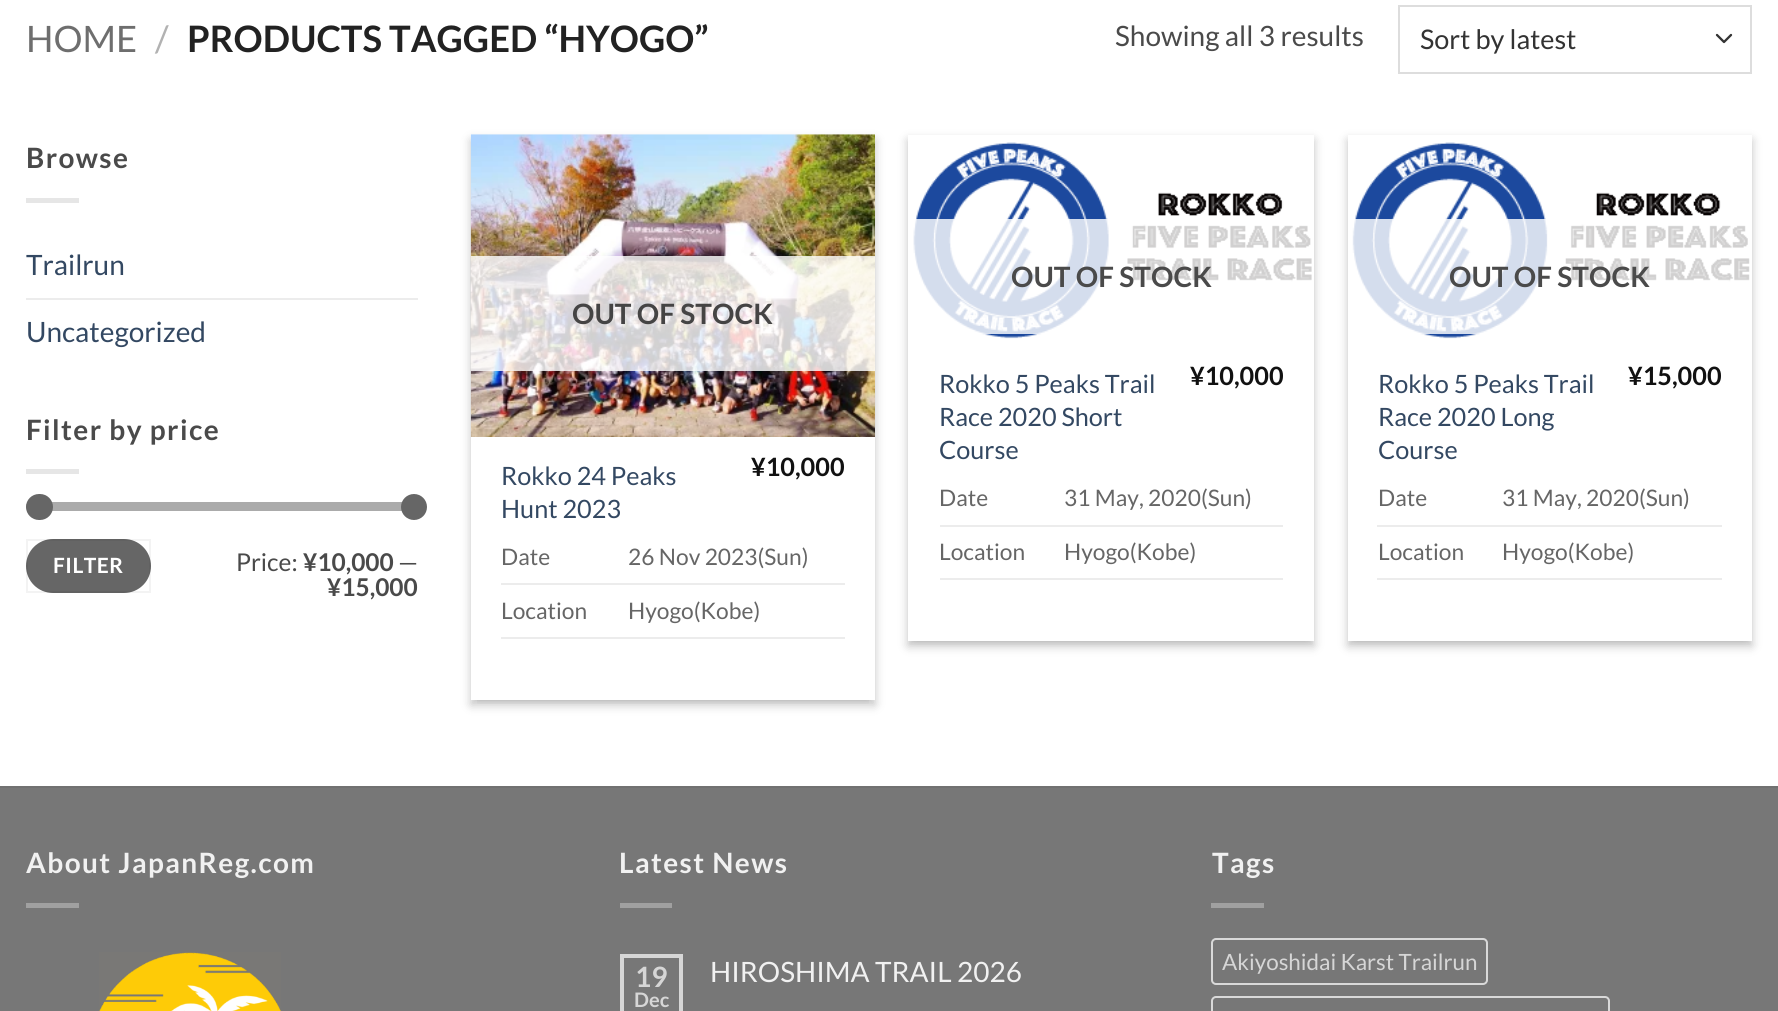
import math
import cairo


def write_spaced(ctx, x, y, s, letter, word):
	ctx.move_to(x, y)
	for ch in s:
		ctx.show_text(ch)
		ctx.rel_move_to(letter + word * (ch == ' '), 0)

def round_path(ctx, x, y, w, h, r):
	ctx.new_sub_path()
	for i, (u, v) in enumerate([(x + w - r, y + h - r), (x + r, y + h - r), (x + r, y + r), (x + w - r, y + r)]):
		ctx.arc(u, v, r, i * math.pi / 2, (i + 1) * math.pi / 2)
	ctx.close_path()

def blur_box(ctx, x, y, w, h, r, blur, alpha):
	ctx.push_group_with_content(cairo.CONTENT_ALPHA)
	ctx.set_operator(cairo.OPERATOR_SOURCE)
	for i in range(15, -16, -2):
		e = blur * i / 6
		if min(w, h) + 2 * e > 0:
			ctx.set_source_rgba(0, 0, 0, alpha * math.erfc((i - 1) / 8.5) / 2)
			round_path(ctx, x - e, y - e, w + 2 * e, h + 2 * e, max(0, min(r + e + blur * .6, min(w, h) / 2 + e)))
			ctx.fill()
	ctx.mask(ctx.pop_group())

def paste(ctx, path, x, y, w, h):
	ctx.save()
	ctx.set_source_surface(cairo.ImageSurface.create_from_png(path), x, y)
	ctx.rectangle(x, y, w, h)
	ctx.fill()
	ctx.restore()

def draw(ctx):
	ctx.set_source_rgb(1, 1, 1)
	ctx.paint()
	ctx.select_font_face('Lato')
	ctx.set_font_size(36.4)
	ctx.set_source_rgb(0.431, 0.431, 0.431)
	ctx.move_to(26, 52)
	ctx.show_text('HOME')
	ctx.set_source_rgb(0.698, 0.698, 0.698)
	ctx.move_to(155, 52)
	ctx.show_text('/')
	ctx.select_font_face('Lato', cairo.FONT_SLANT_NORMAL, cairo.FONT_WEIGHT_BOLD)
	ctx.set_source_rgb(0.133, 0.133, 0.133)
	ctx.move_to(187, 52)
	ctx.show_text('PRODUCTS TAGGED “HYOGO”')
	ctx.select_font_face('Lato')
	ctx.set_font_size(28)
	ctx.set_source_rgb(0.29, 0.29, 0.29)
	ctx.move_to(1115, 46)
	ctx.show_text('Showing all 3 results')
	ctx.new_path()
	ctx.move_to(1717, 35)
	ctx.line_to(1724, 42)
	ctx.line_to(1731, 35)
	ctx.set_source_rgb(0.2, 0.2, 0.2)
	ctx.set_line_width(2.3)
	ctx.set_line_cap(cairo.LINE_CAP_ROUND)
	ctx.set_line_join(cairo.LINE_JOIN_ROUND)
	ctx.stroke()
	ctx.rectangle(1399, 6, 352, 67)
	ctx.set_source_rgb(0.867, 0.867, 0.867)
	ctx.set_line_width(2)
	ctx.set_line_cap(cairo.LINE_CAP_BUTT)
	ctx.set_line_join(cairo.LINE_JOIN_MITER)
	ctx.stroke()
	ctx.set_font_size(27)
	ctx.set_source_rgb(0.2, 0.2, 0.2)
	ctx.move_to(1420, 49)
	ctx.show_text('Sort by latest')
	ctx.select_font_face('Lato', cairo.FONT_SLANT_NORMAL, cairo.FONT_WEIGHT_BOLD)
	ctx.set_font_size(28)
	ctx.set_source_rgb(0.29, 0.29, 0.29)
	write_spaced(ctx, 26, 168, 'Browse', 1.4, 0)
	ctx.set_source_rgb(0.902, 0.902, 0.902)
	ctx.rectangle(26, 198, 53, 5)
	ctx.fill()
	ctx.select_font_face('Lato')
	ctx.set_source_rgb(0.2, 0.282, 0.384)
	ctx.move_to(26, 275)
	ctx.show_text('Trailrun')
	ctx.set_source_rgb(0.925, 0.925, 0.925)
	ctx.rectangle(26, 298, 392, 2)
	ctx.fill()
	ctx.set_source_rgb(0.2, 0.282, 0.384)
	ctx.move_to(26, 342)
	ctx.show_text('Uncategorized')
	ctx.select_font_face('Lato', cairo.FONT_SLANT_NORMAL, cairo.FONT_WEIGHT_BOLD)
	ctx.set_source_rgb(0.29, 0.29, 0.29)
	write_spaced(ctx, 26, 440, 'Filter by price', 1.4, 0)
	ctx.set_source_rgb(0.902, 0.902, 0.902)
	ctx.rectangle(26, 469, 53, 5)
	ctx.fill()
	ctx.set_source_rgb(0.945, 0.945, 0.945)
	round_path(ctx, 26, 502, 392, 9, 4.5)
	ctx.fill()
	ctx.set_source_rgba(0.4, 0.4, 0.4, 0.5)
	round_path(ctx, 26, 502, 392, 9, 4.5)
	ctx.fill()
	ctx.set_source_rgb(0.4, 0.4, 0.4)
	round_path(ctx, 26, 494, 27, 26, 13)
	ctx.fill()
	ctx.arc(414, 507, 13, 0, 2 * math.pi)
	ctx.fill()
	round_path(ctx, 26, 539, 125, 54, 27)
	ctx.fill()
	ctx.rectangle(27, 540, 123, 52)
	ctx.set_source_rgba(0, 0, 0, 0.05)
	ctx.stroke()
	ctx.set_font_size(21)
	ctx.set_source_rgb(1, 1, 1)
	write_spaced(ctx, 53, 573, 'FILTER', 0.5, 0)
	ctx.select_font_face('Lato')
	ctx.set_font_size(24.5)
	ctx.set_source_rgb(0.29, 0.29, 0.29)
	ctx.move_to(236, 571)
	ctx.show_text('Price:')
	ctx.select_font_face('Lato', cairo.FONT_SLANT_NORMAL, cairo.FONT_WEIGHT_BOLD)
	ctx.move_to(303, 571)
	ctx.show_text('¥10,000')
	ctx.select_font_face('Lato')
	ctx.move_to(398, 571)
	ctx.show_text('—')
	ctx.select_font_face('Lato', cairo.FONT_SLANT_NORMAL, cairo.FONT_WEIGHT_BOLD)
	ctx.move_to(327, 596)
	ctx.show_text('¥15,000')
	ctx.save()
	ctx.set_fill_rule(cairo.FILL_RULE_EVEN_ODD)
	ctx.new_path()
	ctx.move_to(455, 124)
	ctx.line_to(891, 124)
	ctx.line_to(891, 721)
	ctx.line_to(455, 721)
	ctx.close_path()
	ctx.move_to(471, 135)
	ctx.line_to(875, 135)
	ctx.line_to(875, 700)
	ctx.line_to(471, 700)
	ctx.close_path()
	ctx.clip()
	ctx.set_source_rgb(0, 0, 0)
	blur_box(ctx, 471, 140, 404, 565, 0, 5, 0.23)
	ctx.restore()
	ctx.save()
	ctx.rectangle(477, 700, 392, 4)
	ctx.clip()
	ctx.set_source_rgb(0, 0, 0)
	blur_box(ctx, 478, 147, 390, 551, 0, 5, 0.16)
	ctx.restore()
	paste(ctx, 'media/1.png', 470, 134, 405, 303)
	ctx.set_source_rgba(1, 1, 1, 0.81)
	ctx.rectangle(471, 256, 404, 115)
	ctx.fill()
	ctx.set_font_size(28)
	ctx.set_source_rgb(0.271, 0.267, 0.267)
	ctx.move_to(572, 324)
	ctx.show_text('OUT OF STOCK')
	ctx.select_font_face('Lato')
	ctx.set_font_size(25.25)
	ctx.set_source_rgb(0.2, 0.282, 0.384)
	ctx.move_to(501, 485)
	ctx.show_text('Rokko 24 Peaks')
	ctx.move_to(501, 518)
	ctx.show_text('Hunt 2023')
	ctx.select_font_face('Lato', cairo.FONT_SLANT_NORMAL, cairo.FONT_WEIGHT_BOLD)
	ctx.set_source_rgb(0.067, 0.067, 0.067)
	ctx.move_to(751, 476)
	ctx.show_text('¥10,000')
	ctx.set_source_rgb(0.925, 0.925, 0.925)
	ctx.rectangle(501, 583, 344, 2)
	ctx.fill()
	ctx.select_font_face('Lato')
	ctx.set_font_size(22.75)
	ctx.set_source_rgb(0.4, 0.4, 0.4)
	ctx.move_to(501, 565)
	ctx.show_text('Date')
	ctx.move_to(628, 565)
	ctx.show_text('26 Nov 2023(Sun)')
	ctx.set_source_rgb(0.925, 0.925, 0.925)
	ctx.rectangle(501, 637, 344, 2)
	ctx.fill()
	ctx.set_source_rgb(0.4, 0.4, 0.4)
	ctx.move_to(501, 619)
	ctx.show_text('Location')
	ctx.move_to(628, 619)
	ctx.show_text('Hyogo(Kobe)')
	ctx.set_source_rgb(0, 0, 0)
	blur_box(ctx, 908, 140, 406, 506, 0, 5, 0.23)
	blur_box(ctx, 915, 147, 392, 492, 0, 5, 0.16)
	ctx.set_source_rgb(1, 1, 1)
	ctx.rectangle(908, 135, 406, 506)
	ctx.fill()
	paste(ctx, 'media/2.png', 913, 142, 399, 197)
	ctx.set_source_rgba(1, 1, 1, 0.81)
	ctx.rectangle(913, 219, 399, 115)
	ctx.fill()
	ctx.select_font_face('Lato', cairo.FONT_SLANT_NORMAL, cairo.FONT_WEIGHT_BOLD)
	ctx.set_font_size(28)
	ctx.set_source_rgb(0.29, 0.29, 0.29)
	ctx.move_to(1011, 287)
	ctx.show_text('OUT OF STOCK')
	ctx.select_font_face('Lato')
	ctx.set_font_size(25.25)
	ctx.set_source_rgb(0.2, 0.282, 0.384)
	for x, y, s in [
		(939, 393, 'Rokko 5 Peaks Trail'),
		(939, 426, 'Race 2020 Short'),
		(939, 459, 'Course'),
	]:
		ctx.move_to(x, y)
		ctx.show_text(s)
	ctx.select_font_face('Lato', cairo.FONT_SLANT_NORMAL, cairo.FONT_WEIGHT_BOLD)
	ctx.set_source_rgb(0.067, 0.067, 0.067)
	ctx.move_to(1190, 385)
	ctx.show_text('¥10,000')
	ctx.set_source_rgb(0.925, 0.925, 0.925)
	ctx.rectangle(940, 525, 343, 2)
	ctx.fill()
	ctx.select_font_face('Lato')
	ctx.set_font_size(22.75)
	ctx.set_source_rgb(0.4, 0.4, 0.4)
	ctx.move_to(939, 506)
	ctx.show_text('Date')
	ctx.move_to(1064, 506)
	ctx.show_text('31 May, 2020(Sun)')
	ctx.set_source_rgb(0.925, 0.925, 0.925)
	ctx.rectangle(940, 578, 343, 2)
	ctx.fill()
	ctx.set_source_rgb(0.4, 0.4, 0.4)
	ctx.move_to(939, 560)
	ctx.show_text('Location')
	ctx.move_to(1064, 560)
	ctx.show_text('Hyogo(Kobe)')
	ctx.set_source_rgb(0, 0, 0)
	blur_box(ctx, 1348, 140, 404, 506, 0, 5, 0.23)
	blur_box(ctx, 1355, 147, 390, 492, 0, 5, 0.16)
	ctx.set_source_rgb(1, 1, 1)
	ctx.rectangle(1348, 135, 404, 506)
	ctx.fill()
	paste(ctx, 'media/3.png', 1352, 142, 398, 197)
	ctx.set_source_rgba(1, 1, 1, 0.81)
	ctx.rectangle(1352, 219, 398, 115)
	ctx.fill()
	ctx.select_font_face('Lato', cairo.FONT_SLANT_NORMAL, cairo.FONT_WEIGHT_BOLD)
	ctx.set_font_size(28)
	ctx.set_source_rgb(0.29, 0.29, 0.29)
	ctx.move_to(1449, 287)
	ctx.show_text('OUT OF STOCK')
	ctx.select_font_face('Lato')
	ctx.set_font_size(25.25)
	ctx.set_source_rgb(0.2, 0.282, 0.384)
	for x, y, s in [
		(1378, 393, 'Rokko 5 Peaks Trail'),
		(1378, 426, 'Race 2020 Long'),
		(1378, 459, 'Course'),
	]:
		ctx.move_to(x, y)
		ctx.show_text(s)
	ctx.select_font_face('Lato', cairo.FONT_SLANT_NORMAL, cairo.FONT_WEIGHT_BOLD)
	ctx.set_source_rgb(0.067, 0.067, 0.067)
	ctx.move_to(1628, 385)
	ctx.show_text('¥15,000')
	ctx.set_source_rgb(0.925, 0.925, 0.925)
	ctx.rectangle(1377, 525, 345, 2)
	ctx.fill()
	ctx.select_font_face('Lato')
	ctx.set_font_size(22.75)
	ctx.set_source_rgb(0.4, 0.4, 0.4)
	ctx.move_to(1378, 506)
	ctx.show_text('Date')
	ctx.move_to(1502, 506)
	ctx.show_text('31 May, 2020(Sun)')
	ctx.set_source_rgb(0.925, 0.925, 0.925)
	ctx.rectangle(1377, 578, 345, 2)
	ctx.fill()
	ctx.set_source_rgb(0.4, 0.4, 0.4)
	ctx.move_to(1378, 560)
	ctx.show_text('Location')
	ctx.move_to(1502, 560)
	ctx.show_text('Hyogo(Kobe)')
	ctx.set_source_rgb(0.467, 0.467, 0.467)
	ctx.rectangle(0, 788, 1778, 223)
	ctx.fill()
	ctx.set_source_rgb(0.443, 0.443, 0.443)
	ctx.rectangle(0, 786, 1778, 2)
	ctx.fill()
	ctx.select_font_face('Lato', cairo.FONT_SLANT_NORMAL, cairo.FONT_WEIGHT_BOLD)
	ctx.set_font_size(28)
	ctx.set_source_rgb(0.945, 0.945, 0.945)
	write_spaced(ctx, 26, 873, 'About JapanReg.com', 1.4, 0)
	ctx.set_source_rgb(0.627, 0.627, 0.627)
	ctx.rectangle(26, 903, 53, 5)
	ctx.fill()
	paste(ctx, 'media/4.png', 99, 952, 182, 59)
	ctx.set_source_rgb(0.945, 0.945, 0.945)
	write_spaced(ctx, 619, 873, 'Latest News', 1.4, 0)
	ctx.set_source_rgb(0.627, 0.627, 0.627)
	ctx.rectangle(620, 903, 52, 5)
	ctx.fill()
	ctx.rectangle(622, 956, 59, 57)
	ctx.set_source_rgb(0.839, 0.839, 0.839)
	ctx.set_line_width(4)
	ctx.stroke()
	ctx.move_to(635, 987)
	ctx.show_text('19')
	ctx.set_font_size(20)
	ctx.move_to(634, 1007)
	ctx.show_text('Dec')
	ctx.select_font_face('Lato')
	ctx.set_font_size(28)
	ctx.set_source_rgb(0.945, 0.945, 0.945)
	ctx.move_to(710, 982)
	ctx.show_text('HIROSHIMA TRAIL 2026')
	ctx.select_font_face('Lato', cairo.FONT_SLANT_NORMAL, cairo.FONT_WEIGHT_BOLD)
	write_spaced(ctx, 1212, 873, 'Tags', 1.4, 0)
	ctx.set_source_rgb(0.627, 0.627, 0.627)
	ctx.rectangle(1211, 903, 53, 5)
	ctx.fill()
	round_path(ctx, 1212, 939, 275, 45, 4)
	ctx.set_source_rgb(0.851, 0.851, 0.851)
	ctx.set_line_width(2)
	ctx.stroke()
	ctx.select_font_face('Lato')
	ctx.set_font_size(22.4)
	ctx.set_source_rgb(0.839, 0.839, 0.839)
	ctx.move_to(1222, 970)
	ctx.show_text('Akiyoshidai Karst Trailrun')
	round_path(ctx, 1212, 997, 397, 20, 4)
	ctx.set_source_rgb(0.851, 0.851, 0.851)
	ctx.stroke()


surface = cairo.ImageSurface(cairo.FORMAT_RGB24, 1778, 1011)
ctx = cairo.Context(surface)
options = cairo.FontOptions()
options.set_hint_metrics(cairo.HINT_METRICS_OFF)
options.set_hint_style(cairo.HINT_STYLE_NONE)
ctx.set_font_options(options)
ctx.set_miter_limit(4)
draw(ctx)
surface.write_to_png('image.png')
